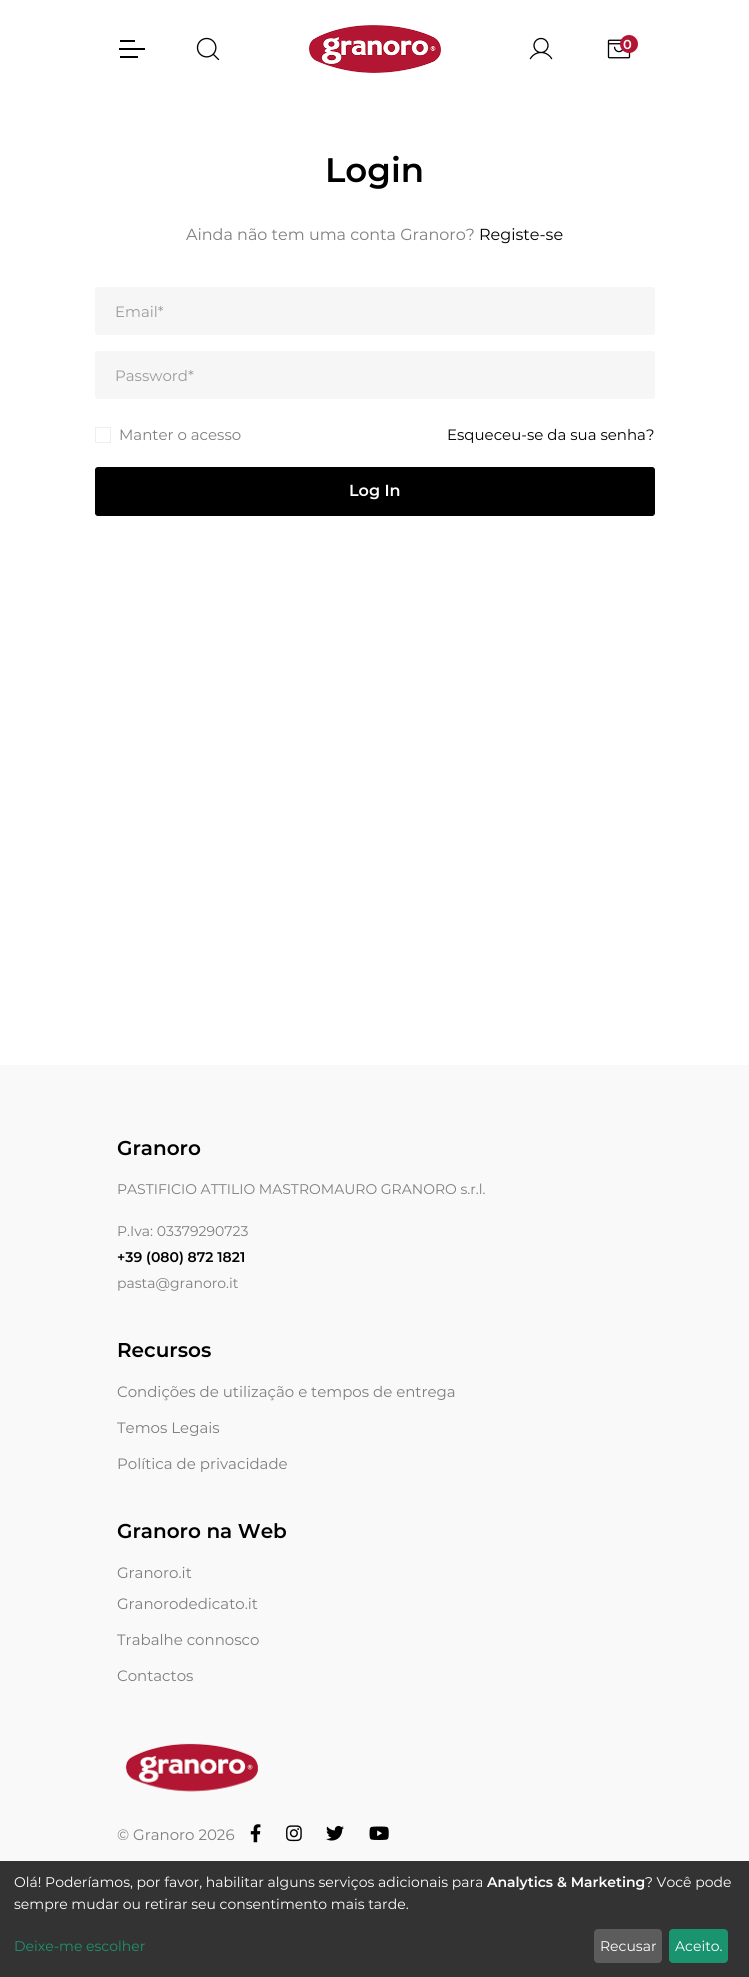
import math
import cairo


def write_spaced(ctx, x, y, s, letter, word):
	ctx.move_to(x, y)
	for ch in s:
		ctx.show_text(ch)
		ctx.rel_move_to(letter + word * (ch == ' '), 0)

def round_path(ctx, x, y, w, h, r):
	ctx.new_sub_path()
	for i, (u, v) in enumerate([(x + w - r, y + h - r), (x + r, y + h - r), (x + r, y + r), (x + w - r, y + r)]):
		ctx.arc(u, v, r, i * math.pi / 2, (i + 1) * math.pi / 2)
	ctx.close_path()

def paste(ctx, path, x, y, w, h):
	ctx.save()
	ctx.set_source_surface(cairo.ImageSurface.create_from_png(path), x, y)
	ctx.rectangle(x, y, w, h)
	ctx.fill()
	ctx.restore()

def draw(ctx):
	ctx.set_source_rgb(1, 1, 1)
	ctx.paint()
	ctx.set_source_rgb(0, 0, 0)
	ctx.rectangle(119, 48, 26, 2)
	ctx.rectangle(120, 40, 15, 2)
	ctx.rectangle(120, 56, 18, 2)
	ctx.fill()
	paste(ctx, 'media/1.png', 196, 37, 24, 24)
	paste(ctx, 'media/2.png', 309, 25, 132, 48)
	paste(ctx, 'media/3.png', 529, 37, 24, 23)
	paste(ctx, 'media/4.png', 607, 39, 24, 20)
	ctx.set_source_rgb(0.702, 0.086, 0.196)
	ctx.arc(629, 44, 9, 0, 2 * math.pi)
	ctx.fill()
	ctx.select_font_face('Montserrat SemiBold')
	ctx.set_font_size(13)
	ctx.set_source_rgb(1, 1, 1)
	write_spaced(ctx, 623, 49, '0', 1, 0)
	ctx.set_font_size(34)
	ctx.set_source_rgb(0, 0, 0)
	ctx.move_to(325, 182)
	ctx.show_text('Login')
	ctx.select_font_face('Montserrat')
	ctx.set_font_size(16)
	ctx.set_source_rgb(0.494, 0.494, 0.494)
	ctx.move_to(186, 240)
	ctx.show_text('Ainda não tem uma conta Granoro?')
	ctx.set_source_rgb(0, 0, 0)
	ctx.move_to(479, 240)
	ctx.show_text('Registe-se')
	ctx.set_source_rgb(0.961, 0.961, 0.961)
	round_path(ctx, 95, 287, 560, 48, 3)
	ctx.fill()
	ctx.set_font_size(15)
	ctx.set_source_rgb(0.608, 0.608, 0.608)
	ctx.move_to(115, 317)
	ctx.show_text('Email*')
	ctx.set_source_rgb(0.961, 0.961, 0.961)
	round_path(ctx, 95, 351, 560, 48, 3)
	ctx.fill()
	ctx.set_source_rgb(0.608, 0.608, 0.608)
	ctx.move_to(115, 381)
	ctx.show_text('Password*')
	ctx.rectangle(95.5, 427.5, 15, 15)
	ctx.set_source_rgb(0.933, 0.933, 0.933)
	ctx.set_line_width(1)
	ctx.stroke()
	ctx.set_source_rgb(0.494, 0.494, 0.494)
	ctx.move_to(119, 440)
	ctx.show_text('Manter o acesso')
	ctx.set_source_rgb(0, 0, 0)
	ctx.move_to(447, 440)
	ctx.show_text('Esqueceu-se da sua senha?')
	round_path(ctx, 95.5, 467.5, 559, 48, 2.5)
	ctx.fill_preserve()
	ctx.stroke()
	ctx.select_font_face('Montserrat SemiBold')
	ctx.set_font_size(16)
	ctx.set_source_rgb(1, 1, 1)
	ctx.move_to(349, 496)
	ctx.show_text('Log In')
	ctx.set_source_rgb(0.973, 0.973, 0.973)
	ctx.rectangle(0, 1065, 749, 796)
	ctx.fill()
	ctx.set_font_size(20)
	ctx.set_source_rgb(0, 0, 0)
	ctx.move_to(117, 1155)
	ctx.show_text('Granoro')
	ctx.select_font_face('Montserrat')
	ctx.set_font_size(14)
	ctx.set_source_rgb(0.494, 0.494, 0.494)
	ctx.move_to(117, 1194)
	ctx.show_text('PASTIFICIO ATTILIO MASTROMAURO GRANORO s.r.l.')
	ctx.move_to(117, 1236)
	ctx.show_text('P.Iva: 03379290723')
	ctx.select_font_face('Montserrat SemiBold')
	ctx.set_source_rgb(0, 0, 0)
	ctx.move_to(117, 1262)
	ctx.show_text('+39 (080) 872 1821')
	ctx.select_font_face('Montserrat')
	ctx.set_source_rgb(0.494, 0.494, 0.494)
	ctx.move_to(117, 1288)
	ctx.show_text('pasta@granoro.it')
	ctx.select_font_face('Montserrat SemiBold')
	ctx.set_font_size(20)
	ctx.set_source_rgb(0, 0, 0)
	ctx.move_to(117, 1357)
	ctx.show_text('Recursos')
	ctx.select_font_face('Montserrat')
	ctx.set_font_size(15)
	ctx.set_source_rgb(0.494, 0.494, 0.494)
	for x, y, s in [
		(117, 1397, 'Condições de utilização e tempos de entrega'),
		(117, 1433, 'Temos Legais'),
		(117, 1469, 'Política de privacidade'),
	]:
		ctx.move_to(x, y)
		ctx.show_text(s)
	ctx.select_font_face('Montserrat SemiBold')
	ctx.set_font_size(20)
	ctx.set_source_rgb(0, 0, 0)
	ctx.move_to(117, 1538)
	ctx.show_text('Granoro na Web')
	ctx.select_font_face('Montserrat')
	ctx.set_font_size(15)
	ctx.set_source_rgb(0.494, 0.494, 0.494)
	for x, y, s in [
		(117, 1578, 'Granoro.it'),
		(117, 1609, 'Granorodedicato.it'),
		(117, 1645, 'Trabalhe connosco'),
		(117, 1681, 'Contactos'),
	]:
		ctx.move_to(x, y)
		ctx.show_text(s)
	paste(ctx, 'media/5.png', 125, 1743, 133, 49)
	ctx.move_to(117, 1840)
	ctx.show_text('© Granoro 2026')
	paste(ctx, 'media/6.png', 250, 1824, 11, 19)
	paste(ctx, 'media/7.png', 286, 1825, 16, 17)
	paste(ctx, 'media/8.png', 326, 1825, 18, 16)
	paste(ctx, 'media/9.png', 369, 1826, 20, 14)
	ctx.set_source_rgb(0.2, 0.2, 0.2)
	ctx.rectangle(0, 1861, 749, 116)
	ctx.fill()
	ctx.set_font_size(14)
	ctx.set_source_rgb(1, 1, 1)
	ctx.move_to(14, 1887)
	ctx.show_text('Olá! Poderíamos, por favor, habilitar alguns serviços adicionais para')
	ctx.select_font_face('Montserrat SemiBold')
	ctx.move_to(487, 1887)
	ctx.show_text('Analytics & Marketing')
	ctx.select_font_face('Montserrat')
	ctx.move_to(645, 1887)
	ctx.show_text('? Você pode')
	ctx.move_to(14, 1909)
	ctx.show_text('sempre mudar ou retirar seu consentimento mais tarde.')
	ctx.set_source_rgb(0.102, 0.576, 0.435)
	ctx.move_to(14, 1951)
	ctx.show_text('Deixe-me escolher')
	ctx.set_source_rgb(0.361, 0.361, 0.361)
	round_path(ctx, 594, 1929, 68, 34, 4)
	ctx.fill()
	ctx.set_source_rgb(1, 1, 1)
	ctx.move_to(600, 1951)
	ctx.show_text('Recusar')
	ctx.set_source_rgb(0.102, 0.576, 0.435)
	round_path(ctx, 669, 1929, 59, 34, 4)
	ctx.fill()
	ctx.set_source_rgb(1, 1, 1)
	ctx.move_to(675, 1951)
	ctx.show_text('Aceito.')


surface = cairo.ImageSurface(cairo.FORMAT_RGB24, 749, 1977)
ctx = cairo.Context(surface)
options = cairo.FontOptions()
options.set_hint_metrics(cairo.HINT_METRICS_OFF)
options.set_hint_style(cairo.HINT_STYLE_NONE)
ctx.set_font_options(options)
ctx.set_miter_limit(4)
draw(ctx)
surface.write_to_png('image.png')
